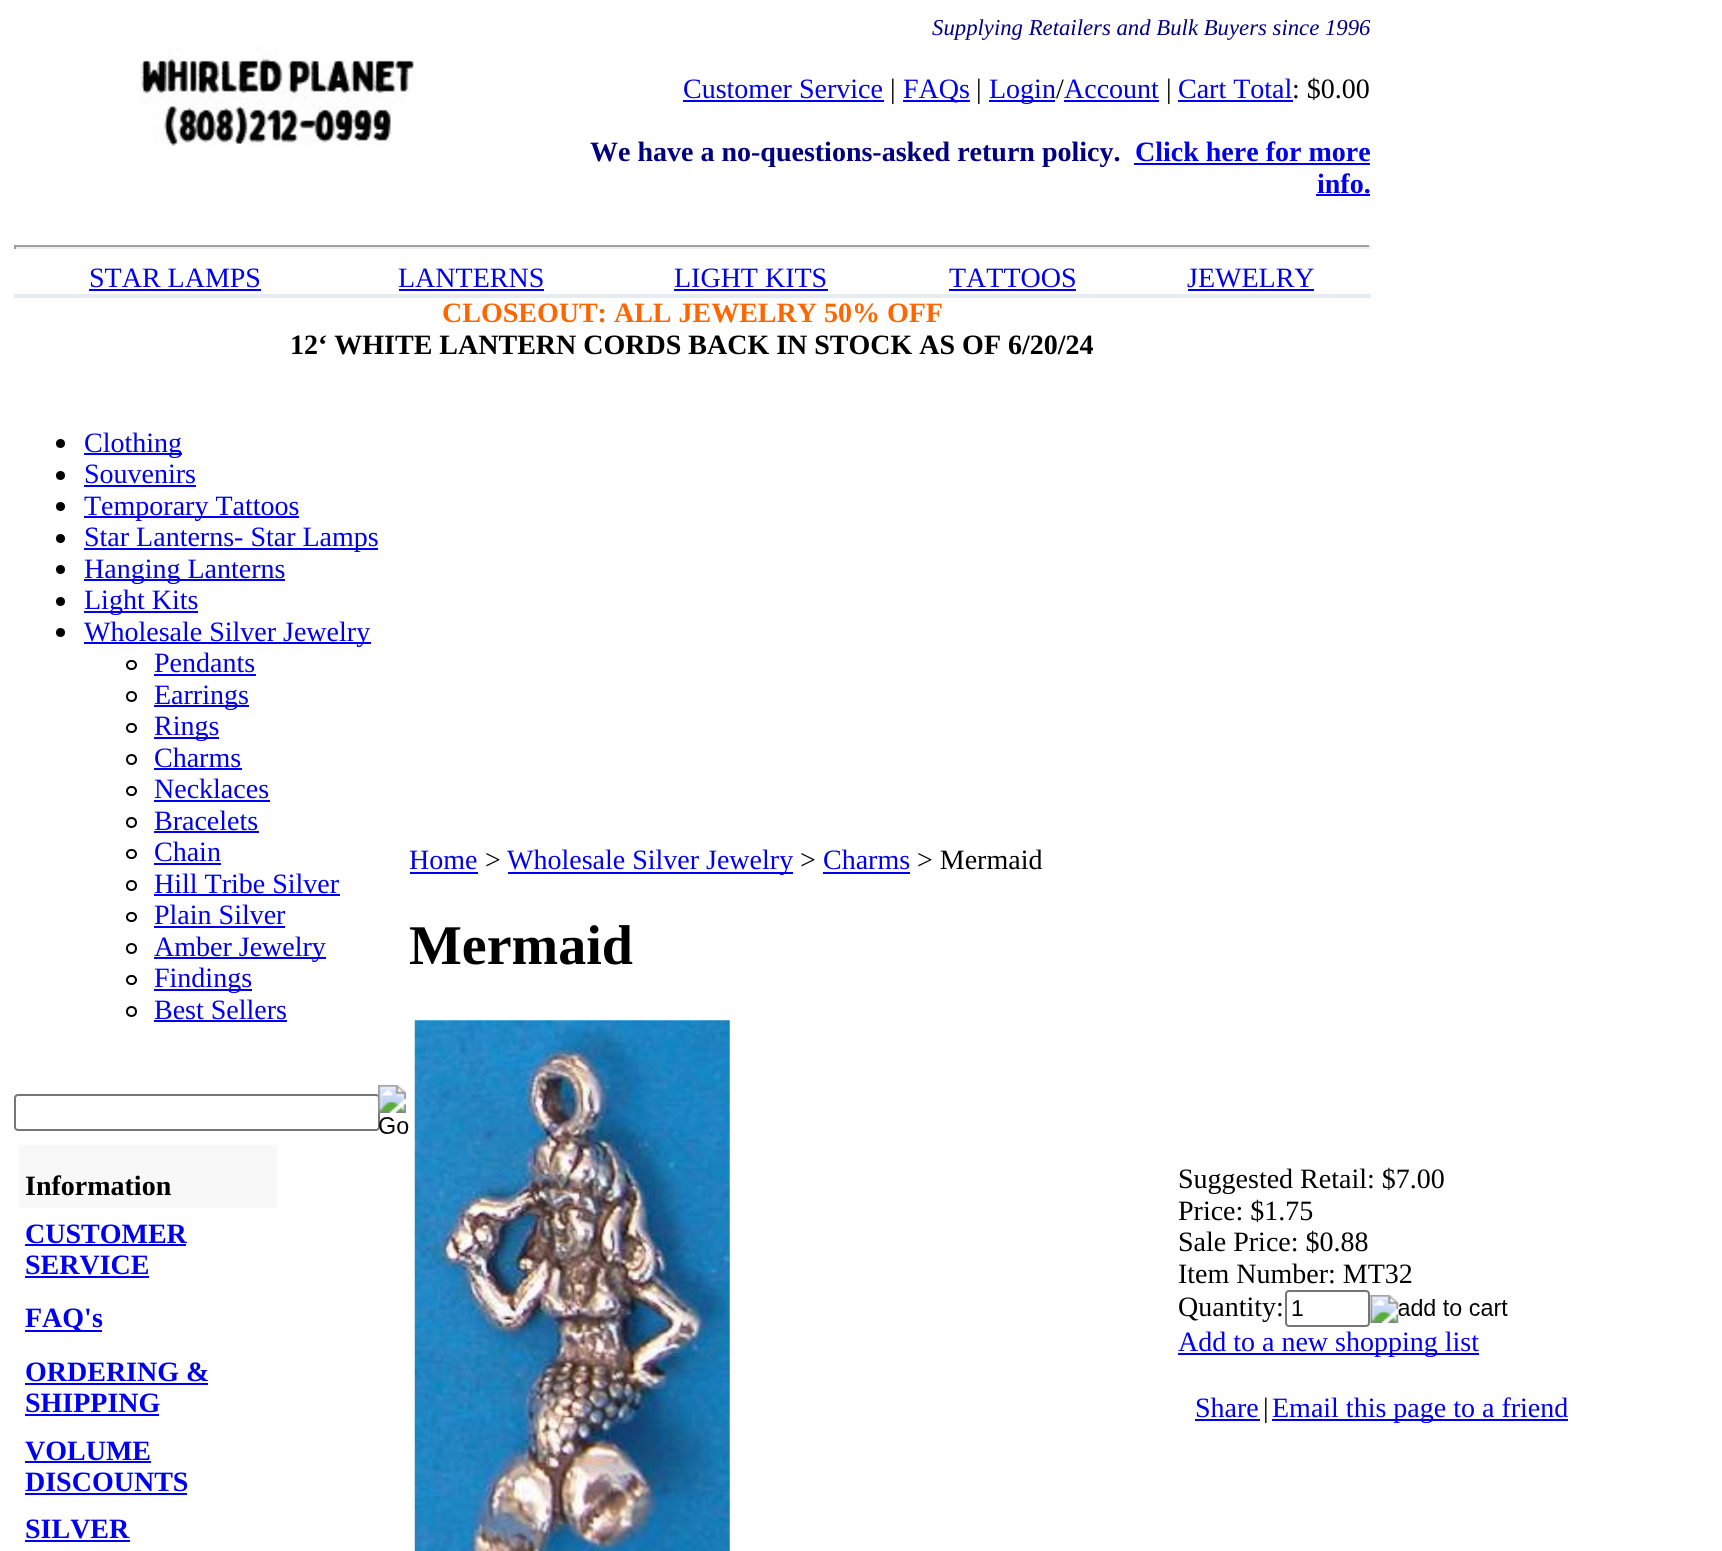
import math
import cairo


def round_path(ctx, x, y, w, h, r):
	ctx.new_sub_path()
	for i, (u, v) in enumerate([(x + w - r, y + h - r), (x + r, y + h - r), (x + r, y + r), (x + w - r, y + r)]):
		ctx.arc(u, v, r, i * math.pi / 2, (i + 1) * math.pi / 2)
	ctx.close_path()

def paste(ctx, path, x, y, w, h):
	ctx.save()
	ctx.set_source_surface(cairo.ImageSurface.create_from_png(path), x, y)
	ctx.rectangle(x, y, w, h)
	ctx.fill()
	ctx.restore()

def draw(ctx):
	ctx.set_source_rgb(1, 1, 1)
	ctx.paint()
	paste(ctx, 'media/1.png', 140, 47, 276, 99)
	ctx.select_font_face('Liberation Serif', cairo.FONT_SLANT_ITALIC)
	ctx.set_font_size(22.75)
	ctx.set_source_rgb(0, 0, 0.502)
	ctx.move_to(932, 35)
	ctx.show_text('Supplying Retailers and Bulk Buyers since 1996')
	ctx.select_font_face('Liberation Serif')
	ctx.set_font_size(28)
	ctx.set_source_rgb(0, 0, 0.933)
	ctx.move_to(683, 98)
	ctx.show_text('Customer Service')
	ctx.rectangle(683, 100, 201, 2)
	ctx.fill()
	ctx.set_source_rgb(0, 0, 0)
	ctx.move_to(890, 98)
	ctx.show_text('|')
	ctx.set_source_rgb(0, 0, 0.933)
	ctx.rectangle(903, 100, 67, 2)
	ctx.fill()
	ctx.move_to(903, 98)
	ctx.show_text('FAQs')
	ctx.set_source_rgb(0, 0, 0)
	ctx.move_to(976, 98)
	ctx.show_text('|')
	ctx.set_source_rgb(0, 0, 0.933)
	ctx.rectangle(989, 100, 66, 2)
	ctx.fill()
	ctx.move_to(989, 98)
	ctx.show_text('Login')
	ctx.set_source_rgb(0, 0, 0)
	ctx.move_to(1056, 98)
	ctx.show_text('/')
	ctx.set_source_rgb(0, 0, 0.933)
	ctx.move_to(1064, 98)
	ctx.show_text('Account')
	ctx.rectangle(1064, 100, 95, 2)
	ctx.fill()
	ctx.set_source_rgb(0, 0, 0)
	ctx.move_to(1166, 98)
	ctx.show_text('|')
	ctx.set_source_rgb(0, 0, 0.933)
	ctx.move_to(1178, 98)
	ctx.show_text('Cart Total')
	ctx.rectangle(1178, 100, 115, 2)
	ctx.fill()
	ctx.set_source_rgb(0, 0, 0)
	ctx.move_to(1292, 98)
	ctx.show_text(': $0.00')
	ctx.select_font_face('Liberation Serif', cairo.FONT_SLANT_NORMAL, cairo.FONT_WEIGHT_BOLD)
	ctx.set_source_rgb(0, 0, 0.502)
	ctx.move_to(590, 161)
	ctx.show_text('We have a no-questions-asked return policy.')
	ctx.set_source_rgb(0, 0, 0.933)
	ctx.move_to(1135, 161)
	ctx.show_text('Click here for more')
	ctx.rectangle(1134, 163, 236, 2)
	ctx.fill()
	ctx.move_to(1317, 193)
	ctx.show_text('info.')
	ctx.rectangle(1316, 194, 54, 2)
	ctx.fill()
	ctx.set_source_rgb(0.624, 0.624, 0.624)
	ctx.rectangle(14, 245, 1356, 2)
	ctx.fill()
	ctx.set_source_rgb(0.933, 0.933, 0.933)
	ctx.rectangle(1369, 245, 2, 4)
	ctx.rectangle(14, 247, 1356, 2)
	ctx.fill()
	ctx.set_source_rgb(0.624, 0.624, 0.624)
	ctx.rectangle(14, 245, 2, 4)
	ctx.fill()
	ctx.select_font_face('Liberation Serif')
	ctx.set_source_rgb(0, 0, 0.933)
	ctx.move_to(89, 287)
	ctx.show_text('STAR LAMPS')
	ctx.rectangle(89, 289, 172, 2)
	ctx.fill()
	ctx.move_to(398, 287)
	ctx.show_text('LANTERNS')
	ctx.rectangle(399, 289, 145, 2)
	ctx.fill()
	ctx.move_to(674, 287)
	ctx.show_text('LIGHT KITS')
	ctx.rectangle(674, 289, 154, 2)
	ctx.fill()
	ctx.move_to(949, 287)
	ctx.show_text('TATTOOS')
	ctx.rectangle(949, 289, 127, 2)
	ctx.fill()
	ctx.move_to(1187, 287)
	ctx.show_text('JEWELRY')
	ctx.rectangle(1188, 289, 126, 2)
	ctx.fill()
	ctx.set_source_rgb(0.906, 0.922, 0.941)
	ctx.rectangle(14, 294, 1357, 4)
	ctx.fill()
	ctx.select_font_face('Liberation Serif', cairo.FONT_SLANT_NORMAL, cairo.FONT_WEIGHT_BOLD)
	ctx.set_source_rgb(1, 0.4, 0)
	ctx.move_to(442, 322)
	ctx.show_text('CLOSEOUT: ALL JEWELRY 50% OFF')
	ctx.set_source_rgb(0, 0, 0)
	ctx.move_to(290, 354)
	ctx.show_text('12ʻ WHITE LANTERN CORDS BACK IN STOCK AS OF 6/20/24')
	ctx.new_path()
	ctx.arc(60.5, 443.5, 4.5, 0, 2 * math.pi)
	ctx.fill()
	ctx.set_source_rgb(0, 0, 0.933)
	ctx.rectangle(84, 453, 98, 2)
	ctx.fill()
	ctx.select_font_face('Liberation Serif')
	ctx.move_to(84, 452)
	ctx.show_text('Clothing')
	ctx.set_source_rgb(0, 0, 0)
	ctx.new_path()
	ctx.arc(60.5, 475.5, 4.5, 0, 2 * math.pi)
	ctx.fill()
	ctx.set_source_rgb(0, 0, 0.933)
	ctx.move_to(84, 483)
	ctx.show_text('Souvenirs')
	ctx.rectangle(84, 485, 112, 2)
	ctx.fill()
	ctx.set_source_rgb(0, 0, 0)
	ctx.arc(60.5, 506.5, 4.5, 0, 2 * math.pi)
	ctx.fill()
	ctx.set_source_rgb(0, 0, 0.933)
	ctx.rectangle(84, 516, 215, 2)
	ctx.fill()
	ctx.move_to(84, 515)
	ctx.show_text('Temporary Tattoos')
	ctx.set_source_rgb(0, 0, 0)
	ctx.new_path()
	ctx.arc(60.5, 538.5, 4.5, 0, 2 * math.pi)
	ctx.fill()
	ctx.set_source_rgb(0, 0, 0.933)
	ctx.rectangle(84, 548, 294, 2)
	ctx.fill()
	ctx.move_to(84, 546)
	ctx.show_text('Star Lanterns- Star Lamps')
	ctx.set_source_rgb(0, 0, 0)
	ctx.new_path()
	ctx.arc(60.5, 569.5, 4.5, 0, 2 * math.pi)
	ctx.fill()
	ctx.set_source_rgb(0, 0, 0.933)
	ctx.rectangle(84, 579, 201, 2)
	ctx.fill()
	ctx.move_to(84, 578)
	ctx.show_text('Hanging Lanterns')
	ctx.set_source_rgb(0, 0, 0)
	ctx.new_path()
	ctx.arc(60.5, 601.5, 4.5, 0, 2 * math.pi)
	ctx.fill()
	ctx.set_source_rgb(0, 0, 0.933)
	ctx.rectangle(84, 611, 114, 2)
	ctx.fill()
	ctx.move_to(84, 609)
	ctx.show_text('Light Kits')
	ctx.set_source_rgb(0, 0, 0)
	ctx.new_path()
	ctx.arc(60.5, 632.5, 4.5, 0, 2 * math.pi)
	ctx.fill()
	ctx.set_source_rgb(0, 0, 0.933)
	ctx.rectangle(84, 642, 287, 2)
	ctx.fill()
	ctx.move_to(84, 641)
	ctx.show_text('Wholesale Silver Jewelry')
	round_path(ctx, 127, 661, 9, 8, 4)
	ctx.set_source_rgb(0, 0, 0)
	ctx.stroke()
	ctx.set_source_rgb(0, 0, 0.933)
	ctx.move_to(154, 672)
	ctx.show_text('Pendants')
	ctx.rectangle(154, 674, 102, 2)
	ctx.fill()
	ctx.arc(131.5, 696.5, 4.5, 0, 2 * math.pi)
	ctx.set_source_rgb(0, 0, 0)
	ctx.stroke()
	ctx.set_source_rgb(0, 0, 0.933)
	ctx.rectangle(154, 705, 95, 2)
	ctx.fill()
	ctx.move_to(154, 704)
	ctx.show_text('Earrings')
	round_path(ctx, 127, 724, 9, 8, 4)
	ctx.set_source_rgb(0, 0, 0)
	ctx.stroke()
	ctx.set_source_rgb(0, 0, 0.933)
	ctx.rectangle(154, 737, 65, 2)
	ctx.fill()
	ctx.move_to(154, 735)
	ctx.show_text('Rings')
	ctx.new_path()
	ctx.arc(131.5, 759.5, 4.5, 0, 2 * math.pi)
	ctx.set_source_rgb(0, 0, 0)
	ctx.stroke()
	ctx.set_source_rgb(0, 0, 0.933)
	ctx.move_to(154, 767)
	ctx.show_text('Charms')
	ctx.rectangle(154, 768, 88, 2)
	ctx.fill()
	round_path(ctx, 127, 787, 9, 8, 4)
	ctx.set_source_rgb(0, 0, 0)
	ctx.stroke()
	ctx.set_source_rgb(0, 0, 0.933)
	ctx.move_to(154, 798)
	ctx.show_text('Necklaces')
	ctx.rectangle(154, 800, 116, 2)
	ctx.fill()
	ctx.arc(131.5, 822.5, 4.5, 0, 2 * math.pi)
	ctx.set_source_rgb(0, 0, 0)
	ctx.stroke()
	ctx.set_source_rgb(0, 0, 0.933)
	ctx.move_to(154, 830)
	ctx.show_text('Bracelets')
	ctx.rectangle(154, 831, 105, 2)
	ctx.fill()
	round_path(ctx, 127, 850, 9, 8, 4)
	ctx.set_source_rgb(0, 0, 0)
	ctx.stroke()
	ctx.set_source_rgb(0, 0, 0.933)
	ctx.move_to(154, 861)
	ctx.show_text('Chain')
	ctx.rectangle(154, 863, 67, 2)
	ctx.fill()
	ctx.arc(131.5, 885.5, 4.5, 0, 2 * math.pi)
	ctx.set_source_rgb(0, 0, 0)
	ctx.stroke()
	ctx.set_source_rgb(0, 0, 0.933)
	ctx.move_to(154, 893)
	ctx.show_text('Hill Tribe Silver')
	ctx.rectangle(154, 894, 186, 2)
	ctx.fill()
	round_path(ctx, 127, 913, 9, 8, 4)
	ctx.set_source_rgb(0, 0, 0)
	ctx.stroke()
	ctx.set_source_rgb(0, 0, 0.933)
	ctx.move_to(154, 924)
	ctx.show_text('Plain Silver')
	ctx.rectangle(154, 926, 131, 2)
	ctx.fill()
	ctx.arc(131.5, 948.5, 4.5, 0, 2 * math.pi)
	ctx.set_source_rgb(0, 0, 0)
	ctx.stroke()
	ctx.set_source_rgb(0, 0, 0.933)
	ctx.rectangle(154, 957, 172, 2)
	ctx.fill()
	ctx.move_to(154, 956)
	ctx.show_text('Amber Jewelry')
	round_path(ctx, 127, 976, 9, 8, 4)
	ctx.set_source_rgb(0, 0, 0)
	ctx.stroke()
	ctx.set_source_rgb(0, 0, 0.933)
	ctx.rectangle(154, 989, 98, 2)
	ctx.fill()
	ctx.move_to(154, 987)
	ctx.show_text('Findings')
	ctx.new_path()
	ctx.arc(131.5, 1011.5, 4.5, 0, 2 * math.pi)
	ctx.set_source_rgb(0, 0, 0)
	ctx.stroke()
	ctx.set_source_rgb(0, 0, 0.933)
	ctx.move_to(154, 1019)
	ctx.show_text('Best Sellers')
	ctx.rectangle(154, 1020, 133, 2)
	ctx.fill()
	round_path(ctx, 15, 1095, 364, 35, 3)
	ctx.set_source_rgb(0.463, 0.463, 0.463)
	ctx.stroke()
	paste(ctx, 'media/2.png', 378, 1085, 31, 49)
	ctx.set_source_rgb(0.969, 0.969, 0.969)
	ctx.rectangle(19, 1145, 258, 63)
	ctx.fill()
	ctx.select_font_face('Liberation Serif', cairo.FONT_SLANT_NORMAL, cairo.FONT_WEIGHT_BOLD)
	ctx.set_source_rgb(0, 0, 0)
	ctx.move_to(25, 1195)
	ctx.show_text('Information')
	ctx.set_source_rgb(0, 0, 0.933)
	ctx.move_to(25, 1243)
	ctx.show_text('CUSTOMER')
	ctx.rectangle(25, 1244, 161, 2)
	ctx.fill()
	ctx.move_to(25, 1274)
	ctx.show_text('SERVICE')
	ctx.rectangle(25, 1276, 124, 2)
	ctx.fill()
	ctx.rectangle(25, 1330, 77, 2)
	ctx.fill()
	ctx.move_to(25, 1327)
	ctx.show_text('FAQ\'s')
	ctx.move_to(25, 1381)
	ctx.show_text('ORDERING &')
	ctx.rectangle(25, 1383, 183, 2)
	ctx.fill()
	ctx.move_to(25, 1412)
	ctx.show_text('SHIPPING')
	ctx.rectangle(25, 1414, 134, 2)
	ctx.fill()
	ctx.move_to(25, 1460)
	ctx.show_text('VOLUME')
	ctx.rectangle(25, 1461, 126, 2)
	ctx.fill()
	ctx.move_to(25, 1491)
	ctx.show_text('DISCOUNTS')
	ctx.rectangle(25, 1493, 162, 2)
	ctx.fill()
	ctx.move_to(25, 1538)
	ctx.show_text('SILVER')
	ctx.rectangle(25, 1540, 105, 2)
	ctx.fill()
	ctx.select_font_face('Liberation Serif')
	ctx.move_to(409, 869)
	ctx.show_text('Home')
	ctx.rectangle(410, 872, 68, 2)
	ctx.fill()
	ctx.set_source_rgb(0, 0, 0)
	ctx.move_to(485, 869)
	ctx.show_text('>')
	ctx.set_source_rgb(0, 0, 0.933)
	ctx.rectangle(508, 872, 285, 2)
	ctx.fill()
	ctx.move_to(507, 869)
	ctx.show_text('Wholesale Silver Jewelry')
	ctx.set_source_rgb(0, 0, 0)
	ctx.move_to(800, 869)
	ctx.show_text('>')
	ctx.set_source_rgb(0, 0, 0.933)
	ctx.move_to(823, 869)
	ctx.show_text('Charms')
	ctx.rectangle(823, 872, 87, 2)
	ctx.fill()
	ctx.set_source_rgb(0, 0, 0)
	ctx.move_to(917, 869)
	ctx.show_text('> Mermaid')
	ctx.select_font_face('Liberation Serif', cairo.FONT_SLANT_NORMAL, cairo.FONT_WEIGHT_BOLD)
	ctx.set_font_size(56)
	ctx.move_to(409, 964)
	ctx.show_text('Mermaid')
	paste(ctx, 'media/3.png', 414, 1020, 316, 531)
	ctx.select_font_face('Liberation Serif')
	ctx.set_font_size(28)
	for x, y, s in [
		(1178, 1188, 'Suggested Retail: $7.00'),
		(1178, 1220, 'Price: $1.75'),
		(1178, 1251, 'Sale Price: $0.88'),
		(1178, 1283, 'Item Number: MT32'),
		(1178, 1316, 'Quantity:'),
	]:
		ctx.move_to(x, y)
		ctx.show_text(s)
	round_path(ctx, 1286, 1291, 83, 35, 3)
	ctx.set_source_rgb(0.463, 0.463, 0.463)
	ctx.stroke()
	ctx.select_font_face('Liberation Sans')
	ctx.set_font_size(23)
	ctx.set_source_rgb(0, 0, 0)
	ctx.move_to(1291, 1316)
	ctx.show_text('1')
	paste(ctx, 'media/4.png', 1370, 1295, 138, 28)
	ctx.set_source_rgb(0, 0, 0.933)
	ctx.rectangle(1178, 1353, 301, 2)
	ctx.fill()
	ctx.select_font_face('Liberation Serif')
	ctx.set_font_size(28)
	ctx.move_to(1178, 1351)
	ctx.show_text('Add to a new shopping list')
	ctx.move_to(1195, 1417)
	ctx.show_text('Share')
	ctx.rectangle(1195, 1419, 65, 2)
	ctx.fill()
	ctx.set_source_rgb(0, 0, 0)
	ctx.move_to(1263, 1417)
	ctx.show_text('|')
	ctx.set_source_rgb(0, 0, 0.933)
	ctx.rectangle(1272, 1419, 296, 2)
	ctx.fill()
	ctx.move_to(1272, 1417)
	ctx.show_text('Email this page to a friend')


surface = cairo.ImageSurface(cairo.FORMAT_RGB24, 1722, 1551)
ctx = cairo.Context(surface)
options = cairo.FontOptions()
options.set_hint_metrics(cairo.HINT_METRICS_OFF)
options.set_hint_style(cairo.HINT_STYLE_NONE)
ctx.set_font_options(options)
ctx.set_miter_limit(4)
draw(ctx)
surface.write_to_png('image.png')
